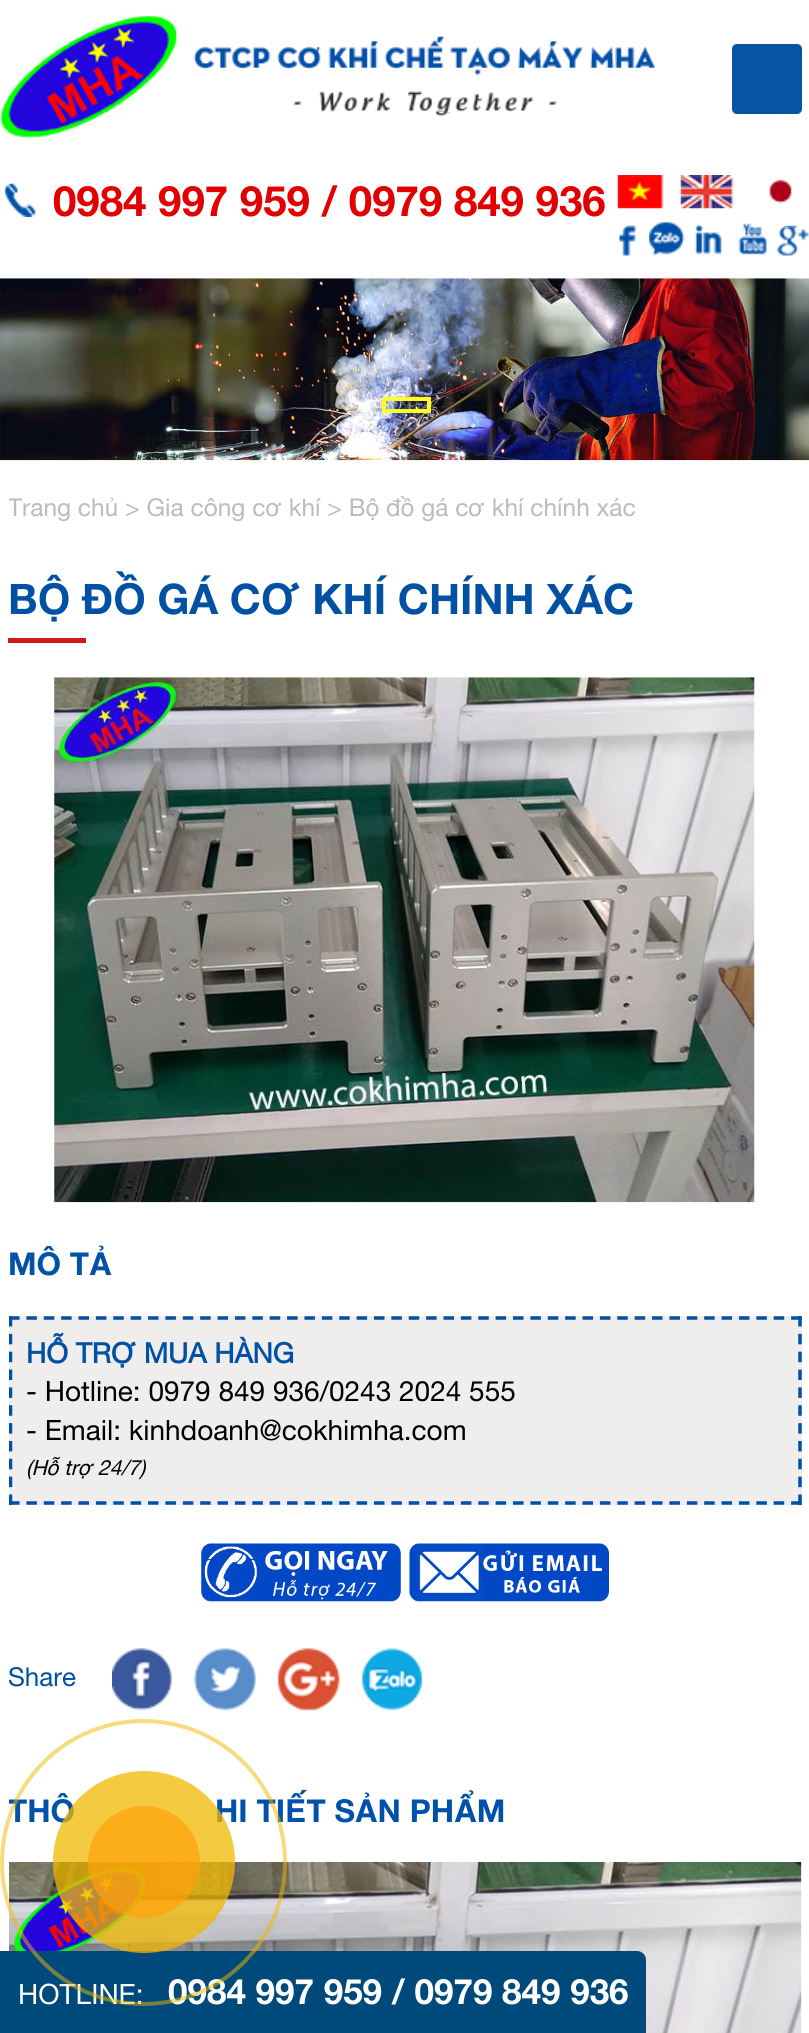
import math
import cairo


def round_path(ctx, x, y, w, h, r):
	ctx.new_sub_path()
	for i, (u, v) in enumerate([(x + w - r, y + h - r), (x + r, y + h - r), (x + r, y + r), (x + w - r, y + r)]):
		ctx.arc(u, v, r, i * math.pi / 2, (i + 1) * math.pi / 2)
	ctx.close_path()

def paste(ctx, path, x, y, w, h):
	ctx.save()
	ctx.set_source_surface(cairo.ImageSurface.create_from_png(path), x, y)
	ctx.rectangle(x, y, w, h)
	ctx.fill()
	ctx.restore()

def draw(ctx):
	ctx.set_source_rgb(1, 1, 1)
	ctx.paint()
	paste(ctx, 'media/1.png', 1, 5, 725, 133)
	ctx.set_source_rgb(0.039, 0.325, 0.639)
	round_path(ctx, 732, 44, 70, 70, 5)
	ctx.fill()
	paste(ctx, 'media/2.png', 4, 183, 32, 34)
	ctx.select_font_face('Helvetica Neue', cairo.FONT_SLANT_NORMAL, cairo.FONT_WEIGHT_BOLD)
	ctx.set_font_size(42)
	ctx.set_source_rgb(0.886, 0, 0)
	ctx.move_to(53, 216)
	ctx.show_text('0984 997 959 / 0979 849 936')
	paste(ctx, 'media/3.png', 617, 175, 47, 34)
	paste(ctx, 'media/4.png', 680, 175, 54, 34)
	paste(ctx, 'media/5.png', 769, 179, 23, 25)
	paste(ctx, 'media/6.png', 619, 225, 17, 31)
	paste(ctx, 'media/7.png', 649, 222, 36, 34)
	paste(ctx, 'media/8.png', 694, 225, 28, 30)
	paste(ctx, 'media/9.png', 738, 223, 29, 32)
	paste(ctx, 'media/10.png', 776, 225, 33, 31)
	paste(ctx, 'media/11.png', 0, 278, 809, 183)
	ctx.rectangle(384, 399, 45, 12)
	ctx.set_source_rgb(1, 1, 0.145)
	ctx.set_line_width(4)
	ctx.stroke()
	ctx.save()
	ctx.rectangle(9, 478, 138, 61)
	ctx.clip()
	ctx.select_font_face('Helvetica Neue')
	ctx.set_font_size(24.5)
	ctx.set_source_rgb(0.741, 0.733, 0.737)
	ctx.move_to(8, 516)
	ctx.show_text('Trang chủ')
	ctx.restore()
	ctx.select_font_face('Helvetica Neue')
	ctx.set_font_size(24.5)
	ctx.set_source_rgb(0.741, 0.733, 0.737)
	ctx.move_to(125, 516)
	ctx.show_text('> Gia công cơ khí > Bộ đồ gá cơ khí chính xác')
	ctx.set_source_rgb(0.816, 0.09, 0.114)
	ctx.rectangle(8, 638, 78, 5)
	ctx.fill()
	ctx.select_font_face('Helvetica Neue', cairo.FONT_SLANT_NORMAL, cairo.FONT_WEIGHT_BOLD)
	ctx.set_font_size(42)
	ctx.set_source_rgb(0, 0.318, 0.639)
	ctx.move_to(8, 614)
	ctx.show_text('BỘ ĐỒ GÁ CƠ KHÍ CHÍNH XÁC')
	paste(ctx, 'media/12.png', 54, 677, 701, 526)
	ctx.set_font_size(31.5)
	ctx.set_source_rgb(0, 0.318, 0.667)
	ctx.move_to(8, 1275)
	ctx.show_text('MÔ TẢ')
	ctx.set_source_rgb(0.937, 0.933, 0.925)
	ctx.rectangle(9, 1316, 793, 189)
	ctx.fill()
	ctx.new_path()
	ctx.move_to(9, 1318)
	ctx.line_to(801.5, 1318)
	ctx.set_source_rgb(0, 0.318, 0.639)
	ctx.set_line_width(3.5)
	ctx.set_dash([10.5, 6.88])
	ctx.stroke()
	ctx.new_path()
	ctx.move_to(800, 1316)
	ctx.line_to(800, 1505)
	ctx.set_dash([10.5, 7.35])
	ctx.stroke()
	ctx.new_path()
	ctx.move_to(9, 1503)
	ctx.line_to(801.5, 1503)
	ctx.set_dash([10.5, 6.88])
	ctx.stroke()
	ctx.save()
	ctx.rectangle(9, 1237, 793, 476)
	ctx.clip()
	ctx.new_path()
	ctx.move_to(10.5, 1316)
	ctx.line_to(10.5, 1505)
	ctx.set_dash([10.5, 7.35])
	ctx.stroke()
	ctx.restore()
	ctx.select_font_face('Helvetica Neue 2', cairo.FONT_SLANT_NORMAL, cairo.FONT_WEIGHT_BOLD)
	ctx.set_font_size(28)
	ctx.move_to(26, 1363)
	ctx.show_text('HỖ TRỢ MUA HÀNG')
	ctx.select_font_face('Helvetica Neue')
	ctx.set_source_rgb(0, 0, 0)
	ctx.move_to(26, 1401)
	ctx.show_text('- Hotline: 0979 849 936/0243 2024 555')
	ctx.move_to(26, 1440)
	ctx.show_text('- Email: kinhdoanh@cokhimha.com')
	ctx.select_font_face('Helvetica Neue', cairo.FONT_SLANT_ITALIC)
	ctx.set_font_size(21)
	ctx.move_to(26, 1475)
	ctx.show_text('(Hỗ trợ 24/7)')
	paste(ctx, 'media/13.png', 201, 1543, 200, 59)
	paste(ctx, 'media/14.png', 409, 1543, 200, 59)
	ctx.select_font_face('Helvetica Neue')
	ctx.set_font_size(26)
	ctx.set_source_rgb(0, 0.318, 0.639)
	ctx.move_to(8, 1686)
	ctx.show_text('Share')
	paste(ctx, 'media/15.png', 112, 1648, 60, 63)
	paste(ctx, 'media/16.png', 193, 1648, 63, 63)
	paste(ctx, 'media/17.png', 277, 1648, 63, 63)
	paste(ctx, 'media/18.png', 361, 1648, 62, 63)
	ctx.save()
	ctx.rectangle(9, 1748, 793, 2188)
	ctx.clip()
	ctx.select_font_face('Helvetica Neue', cairo.FONT_SLANT_NORMAL, cairo.FONT_WEIGHT_BOLD)
	ctx.set_font_size(31.5)
	ctx.set_source_rgb(0, 0.318, 0.667)
	ctx.move_to(8, 1822)
	ctx.show_text('THÔ')
	ctx.restore()
	ctx.select_font_face('Helvetica Neue', cairo.FONT_SLANT_NORMAL, cairo.FONT_WEIGHT_BOLD)
	ctx.set_font_size(31.5)
	ctx.set_source_rgb(0, 0.318, 0.667)
	ctx.move_to(215, 1822)
	ctx.show_text('HI TIẾT SẢN PHẨM')
	paste(ctx, 'media/19.png', 9, 1862, 793, 171)
	ctx.set_source_rgb(0, 0.286, 0.482)
	round_path(ctx, -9, 1951, 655, 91, 9)
	ctx.fill()
	ctx.select_font_face('Helvetica Neue')
	ctx.set_font_size(28)
	ctx.set_source_rgb(1, 1, 1)
	ctx.move_to(18, 2004)
	ctx.show_text('HOTLINE:')
	ctx.select_font_face('Helvetica Neue', cairo.FONT_SLANT_NORMAL, cairo.FONT_WEIGHT_BOLD)
	ctx.set_font_size(35)
	ctx.move_to(168, 2004)
	ctx.show_text('0984 997 959 / 0979 849 936')
	ctx.new_path()
	ctx.arc(143.5, 1862.5, 141.5, 0, 2 * math.pi)
	ctx.set_source_rgba(0.941, 0.722, 0, 0.5)
	ctx.set_line_width(4)
	ctx.set_dash([])
	ctx.stroke()
	ctx.set_source_rgba(0.941, 0.722, 0, 0.75)
	ctx.arc(144, 1862, 91, 0, 2 * math.pi)
	ctx.fill()
	ctx.set_source_rgba(1, 0.631, 0.043, 0.7)
	ctx.arc(144, 1862, 56, 0, 2 * math.pi)
	ctx.fill()


surface = cairo.ImageSurface(cairo.FORMAT_RGB24, 809, 2033)
ctx = cairo.Context(surface)
options = cairo.FontOptions()
options.set_hint_metrics(cairo.HINT_METRICS_OFF)
options.set_hint_style(cairo.HINT_STYLE_NONE)
ctx.set_font_options(options)
ctx.set_miter_limit(4)
draw(ctx)
surface.write_to_png('image.png')
